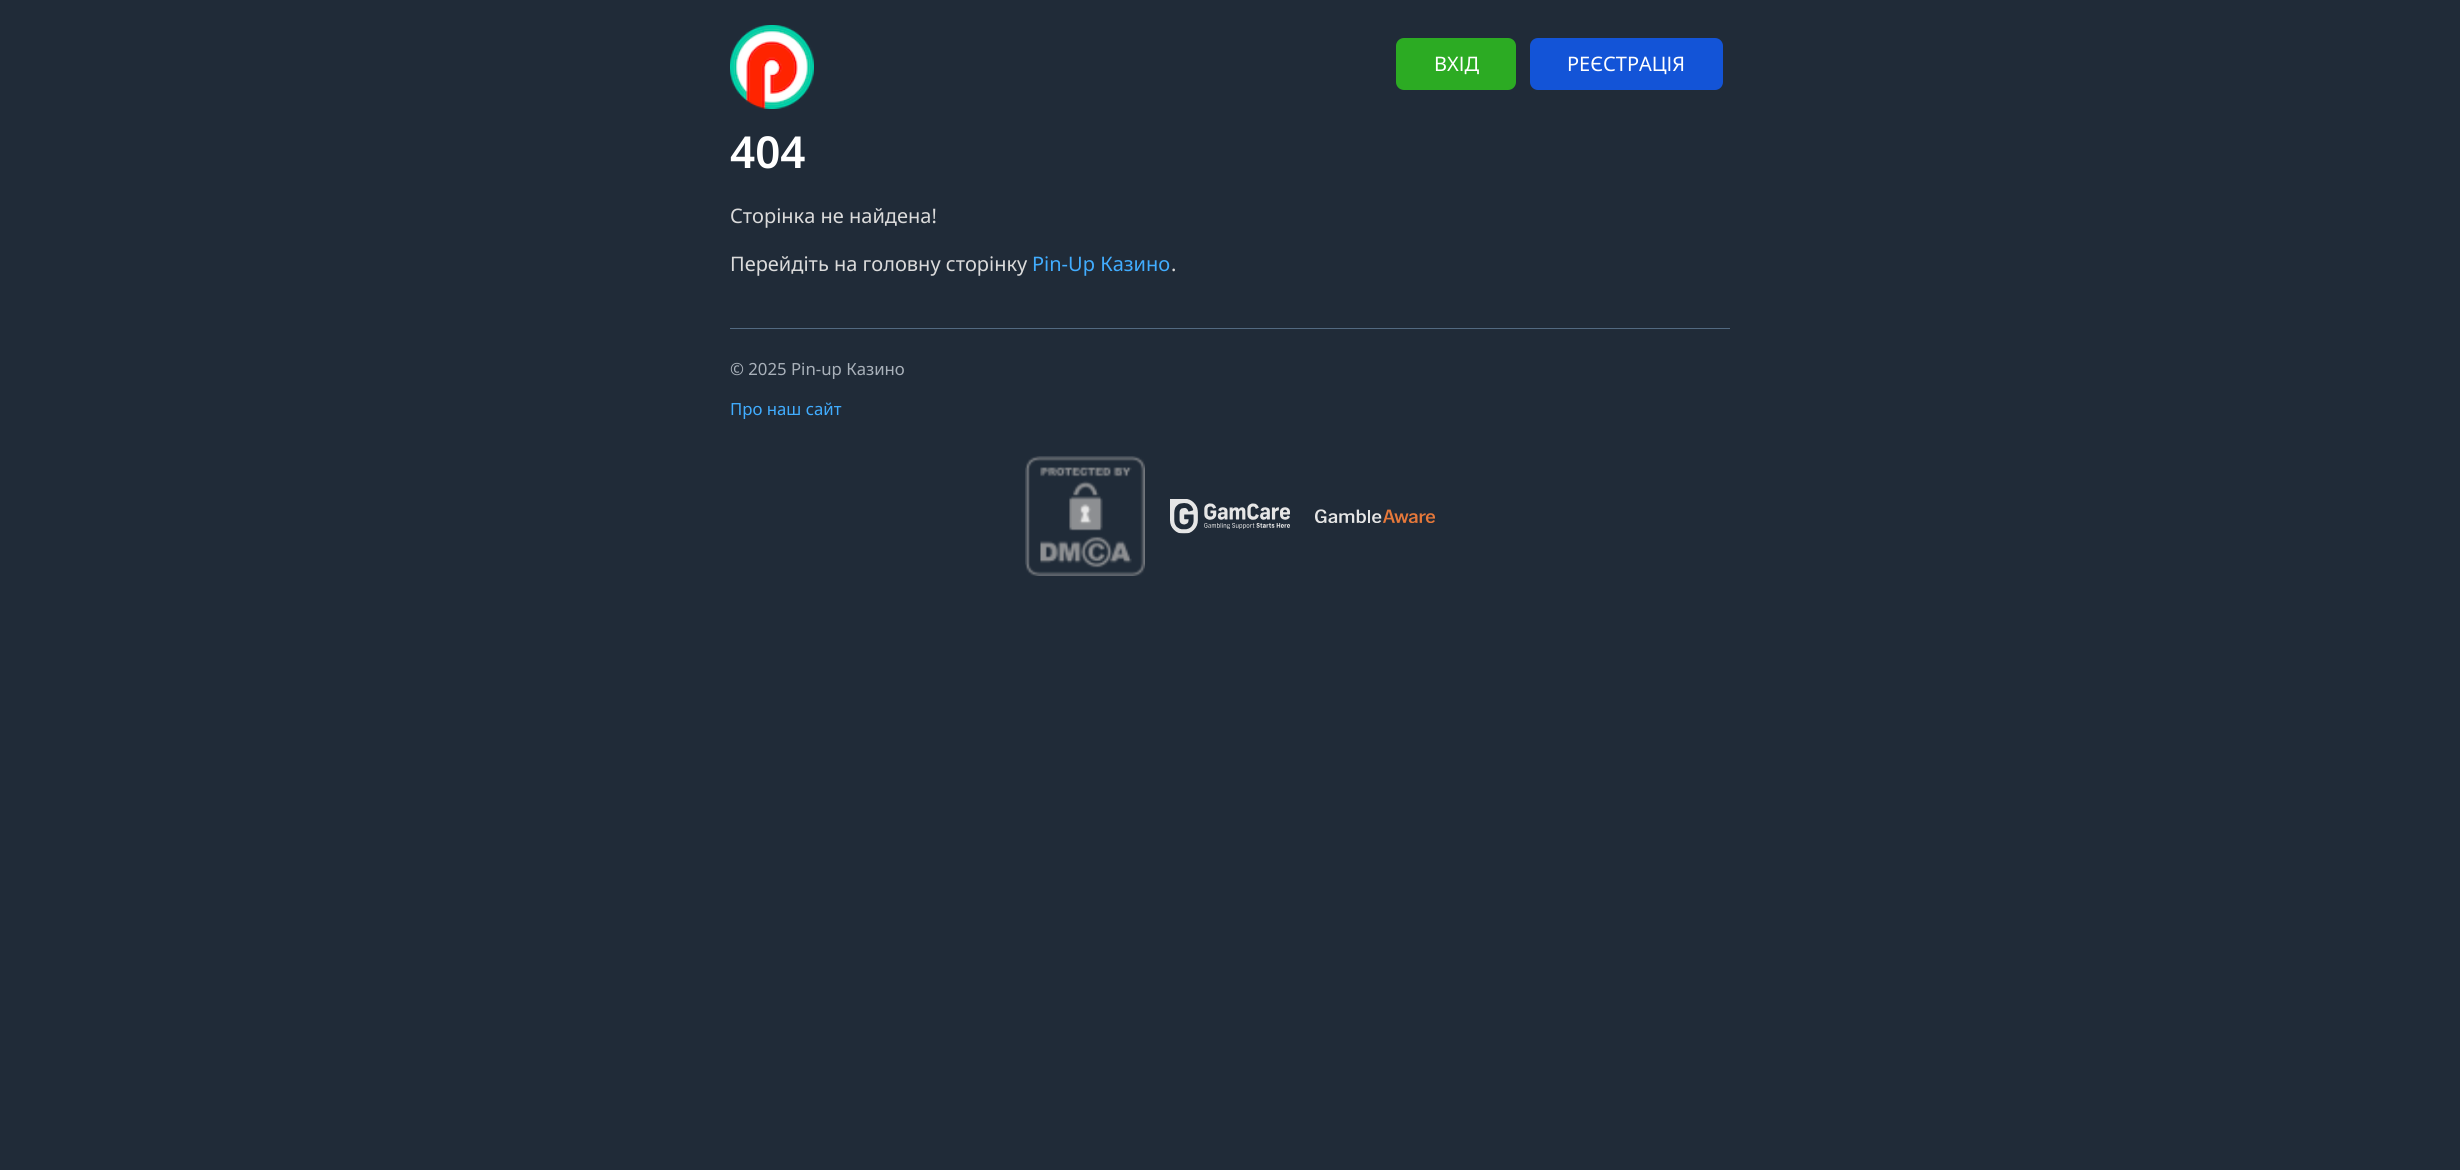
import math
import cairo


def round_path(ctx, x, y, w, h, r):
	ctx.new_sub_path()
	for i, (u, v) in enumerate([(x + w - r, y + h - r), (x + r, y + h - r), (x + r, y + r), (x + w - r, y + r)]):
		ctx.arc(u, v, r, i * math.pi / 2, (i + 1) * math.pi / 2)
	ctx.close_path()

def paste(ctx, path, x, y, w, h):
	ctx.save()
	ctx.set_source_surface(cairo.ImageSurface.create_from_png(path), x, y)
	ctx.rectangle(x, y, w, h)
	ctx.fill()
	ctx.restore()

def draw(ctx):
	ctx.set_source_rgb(0.125, 0.169, 0.22)
	ctx.paint()
	paste(ctx, 'media/1.png', 730, 25, 84, 84)
	ctx.set_source_rgb(0.173, 0.671, 0.137)
	round_path(ctx, 1396, 38, 120, 52, 8)
	ctx.fill()
	ctx.select_font_face('Noto Sans')
	ctx.set_font_size(20)
	ctx.set_source_rgb(1, 1, 1)
	ctx.move_to(1434, 71)
	ctx.show_text('ВХІД')
	ctx.set_source_rgb(0.075, 0.329, 0.843)
	round_path(ctx, 1530, 38, 193, 52, 8)
	ctx.fill()
	ctx.set_source_rgb(1, 1, 1)
	ctx.move_to(1567, 71)
	ctx.show_text('РЕЄСТРАЦІЯ')
	ctx.select_font_face('Noto Sans SemiBold')
	ctx.set_font_size(44)
	ctx.move_to(730, 168)
	ctx.show_text('404')
	ctx.select_font_face('Noto Sans')
	ctx.set_font_size(20)
	ctx.set_source_rgb(0.859, 0.859, 0.859)
	ctx.move_to(730, 223)
	ctx.show_text('Сторінка не найдена!')
	ctx.move_to(730, 271)
	ctx.show_text('Перейдіть на головну сторінку')
	ctx.set_source_rgb(0.255, 0.678, 1)
	ctx.move_to(1032, 271)
	ctx.show_text('Pin-Up Казино')
	ctx.set_source_rgb(0.859, 0.859, 0.859)
	ctx.move_to(1171, 271)
	ctx.show_text('.')
	ctx.set_source_rgb(0.322, 0.412, 0.502)
	ctx.rectangle(730, 328, 1000, 1)
	ctx.fill()
	ctx.set_font_size(16.75)
	ctx.set_source_rgb(0.663, 0.694, 0.729)
	ctx.move_to(730, 375)
	ctx.show_text('© 2025 Pin-up Казино')
	ctx.set_source_rgb(0.255, 0.678, 1)
	ctx.move_to(730, 415)
	ctx.show_text('Про наш сайт')
	paste(ctx, 'media/2.png', 1025, 456, 120, 120)
	paste(ctx, 'media/3.png', 1170, 499, 120, 35)
	paste(ctx, 'media/4.png', 1315, 509, 120, 14)


surface = cairo.ImageSurface(cairo.FORMAT_RGB24, 2460, 1170)
ctx = cairo.Context(surface)
options = cairo.FontOptions()
options.set_hint_metrics(cairo.HINT_METRICS_OFF)
options.set_hint_style(cairo.HINT_STYLE_NONE)
ctx.set_font_options(options)
ctx.set_miter_limit(4)
draw(ctx)
surface.write_to_png('image.png')
